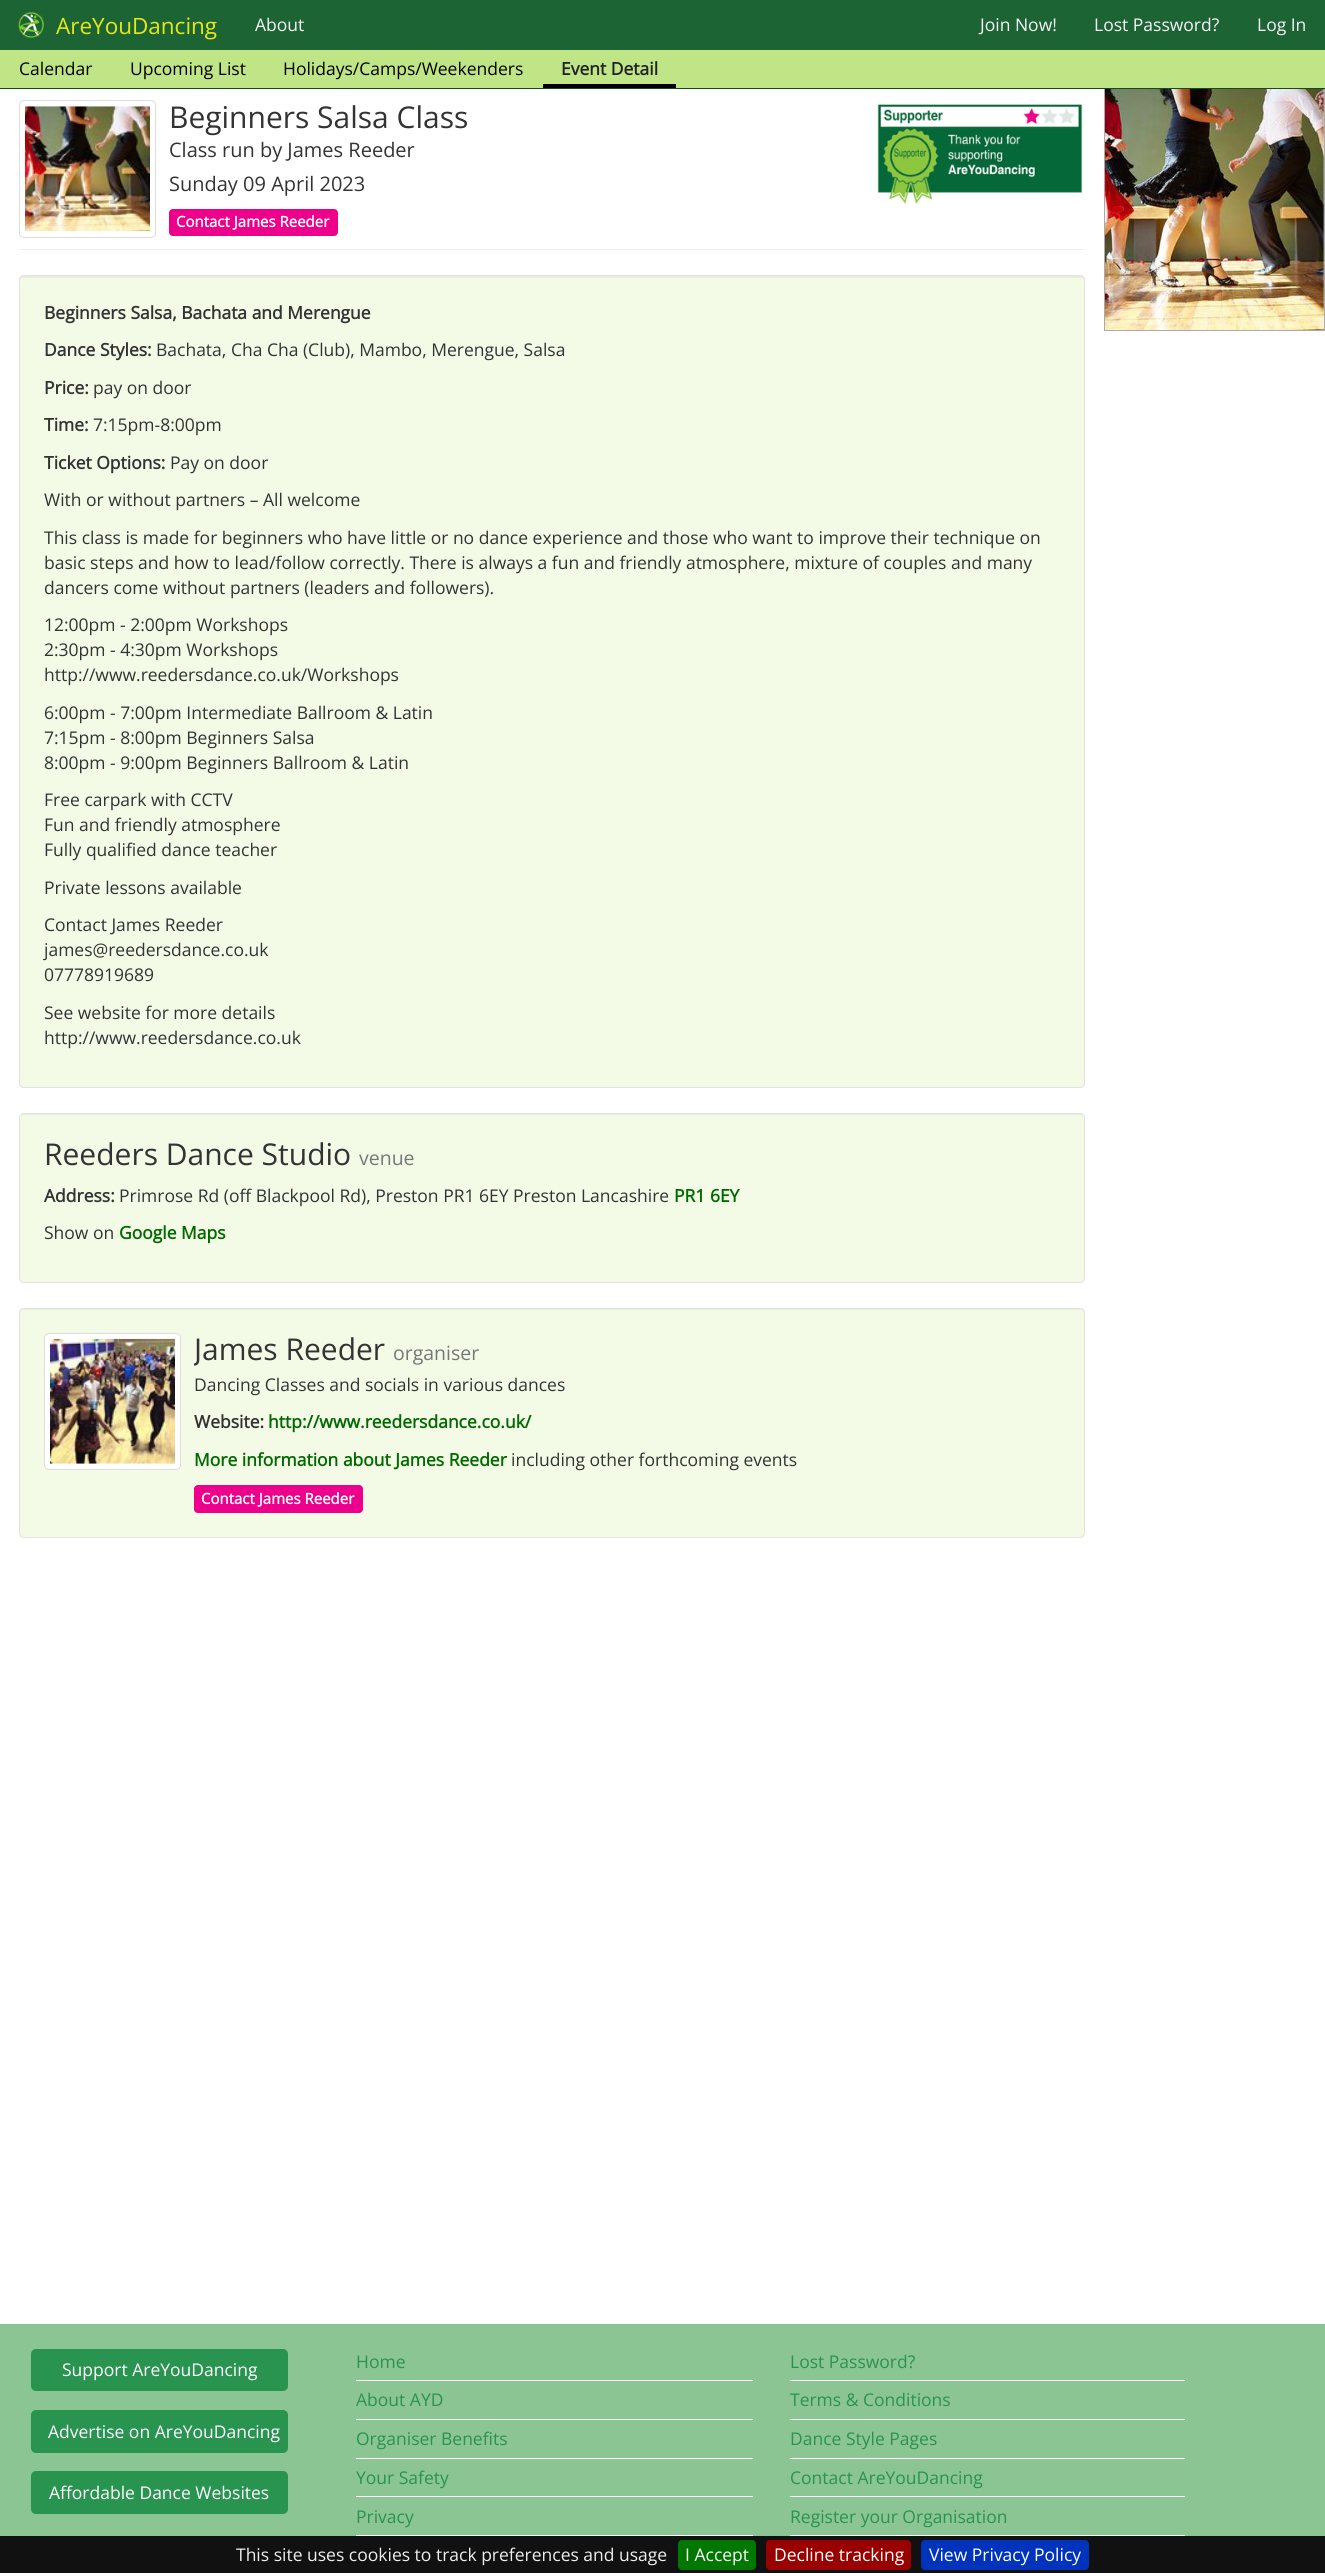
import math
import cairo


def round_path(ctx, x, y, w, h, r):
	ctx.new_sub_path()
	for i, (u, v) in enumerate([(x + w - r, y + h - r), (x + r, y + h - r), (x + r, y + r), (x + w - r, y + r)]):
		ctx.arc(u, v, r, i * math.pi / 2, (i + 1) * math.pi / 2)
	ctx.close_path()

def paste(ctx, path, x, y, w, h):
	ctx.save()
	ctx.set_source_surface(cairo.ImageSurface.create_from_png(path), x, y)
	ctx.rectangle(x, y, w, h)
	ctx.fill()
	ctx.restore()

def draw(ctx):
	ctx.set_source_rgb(1, 1, 1)
	ctx.paint()
	ctx.set_source_rgb(0.114, 0.392, 0.204)
	ctx.rectangle(0, 0, 1325, 50)
	ctx.fill()
	ctx.set_source_rgb(0.667, 0.667, 0.667)
	ctx.rectangle(1324, 88, 1, 243)
	ctx.rectangle(1104, 330, 221, 1)
	ctx.rectangle(1104, 88, 1, 243)
	ctx.fill()
	ctx.set_source_rgb(0.086, 0.29, 0.153)
	ctx.rectangle(0, 88, 1325, 1)
	ctx.fill()
	ctx.select_font_face('Open Sans')
	ctx.set_font_size(17.5)
	ctx.set_source_rgb(0.961, 0.961, 0.961)
	for x, y, s in [
		(255, 31, 'About'),
		(980, 31, 'Join Now!'),
		(1094, 31, 'Lost Password?'),
		(1257, 31, 'Log In'),
	]:
		ctx.move_to(x, y)
		ctx.show_text(s)
	ctx.set_source_rgb(0.749, 0.898, 0.529)
	ctx.rectangle(0, 50, 1325, 38)
	ctx.fill()
	ctx.set_source_rgb(0, 0, 0)
	for x, y, s in [
		(19, 75, 'Calendar'),
		(130, 75, 'Upcoming List'),
		(283, 75, 'Holidays/Camps/Weekenders'),
	]:
		ctx.move_to(x, y)
		ctx.show_text(s)
	ctx.rectangle(543, 84, 133, 4)
	ctx.fill()
	ctx.select_font_face('Open Sans', cairo.FONT_SLANT_NORMAL, cairo.FONT_WEIGHT_BOLD)
	ctx.set_source_rgb(0.133, 0.133, 0.133)
	ctx.move_to(561, 75)
	ctx.show_text('Event Detail')
	paste(ctx, 'media/1.png', 18, 12, 26, 26)
	ctx.select_font_face('Open Sans')
	ctx.set_font_size(22.5)
	ctx.set_source_rgb(0.894, 0.91, 0.102)
	ctx.move_to(56, 34)
	ctx.show_text('AreYouDancing')
	ctx.set_source_rgb(0.933, 0.933, 0.933)
	ctx.rectangle(19, 249, 1066, 1)
	ctx.fill()
	round_path(ctx, 19.5, 100.5, 136, 137, 4.5)
	ctx.set_source_rgb(0.867, 0.867, 0.867)
	ctx.set_line_width(1)
	ctx.stroke()
	paste(ctx, 'media/2.png', 25, 106, 125, 126)
	ctx.set_font_size(30)
	ctx.set_source_rgb(0.2, 0.2, 0.2)
	ctx.move_to(169, 128)
	ctx.show_text('Beginners Salsa Class')
	ctx.set_font_size(20)
	ctx.move_to(169, 157)
	ctx.show_text('Class run by James Reeder')
	ctx.move_to(169, 191)
	ctx.show_text('Sunday 09 April 2023')
	ctx.set_source_rgb(0.922, 0, 0.549)
	round_path(ctx, 169, 209, 169, 27, 4)
	ctx.fill()
	ctx.select_font_face('Open Sans', cairo.FONT_SLANT_NORMAL, cairo.FONT_WEIGHT_BOLD)
	ctx.set_font_size(15)
	ctx.set_source_rgb(1, 1, 1)
	ctx.move_to(176, 227)
	ctx.show_text('Contact James Reeder')
	paste(ctx, 'media/3.png', 877, 104, 206, 100)
	ctx.set_source_rgb(0.953, 0.98, 0.902)
	round_path(ctx, 19, 275, 1066, 813, 5)
	ctx.fill()
	ctx.set_source_rgb(0.906, 0.933, 0.859)
	ctx.new_path()
	ctx.move_to(24, 278)
	ctx.line_to(1080, 278)
	ctx.curve_to(1082, 278, 1084, 279, 1084, 281)
	ctx.curve_to(1084, 278, 1083, 276, 1080, 276)
	ctx.line_to(24, 276)
	ctx.curve_to(21, 276, 20, 278, 20, 281)
	ctx.curve_to(20, 279, 22, 278, 24, 278)
	ctx.close_path()
	ctx.fill()
	round_path(ctx, 19.5, 275.5, 1065, 812, 4.5)
	ctx.set_source_rgb(0.89, 0.89, 0.89)
	ctx.stroke()
	ctx.set_font_size(17.5)
	ctx.set_source_rgb(0.2, 0.2, 0.2)
	ctx.move_to(44, 319)
	ctx.show_text('Beginners Salsa, Bachata and Merengue')
	ctx.move_to(44, 356)
	ctx.show_text('Dance Styles:')
	ctx.select_font_face('Open Sans')
	ctx.move_to(156, 356)
	ctx.show_text('Bachata, Cha Cha (Club), Mambo, Merengue, Salsa')
	ctx.select_font_face('Open Sans', cairo.FONT_SLANT_NORMAL, cairo.FONT_WEIGHT_BOLD)
	ctx.move_to(44, 394)
	ctx.show_text('Price:')
	ctx.select_font_face('Open Sans')
	ctx.move_to(93, 394)
	ctx.show_text('pay on door')
	ctx.select_font_face('Open Sans', cairo.FONT_SLANT_NORMAL, cairo.FONT_WEIGHT_BOLD)
	ctx.move_to(44, 431)
	ctx.show_text('Time:')
	ctx.select_font_face('Open Sans')
	ctx.move_to(93, 431)
	ctx.show_text('7:15pm-8:00pm')
	ctx.select_font_face('Open Sans', cairo.FONT_SLANT_NORMAL, cairo.FONT_WEIGHT_BOLD)
	ctx.move_to(44, 469)
	ctx.show_text('Ticket Options:')
	ctx.select_font_face('Open Sans')
	for x, y, s in [
		(170, 469, 'Pay on door'),
		(44, 506, 'With or without partners – All welcome'),
		(44, 544, 'This class is made for beginners who have little or no dance experience and those who want to improve their technique on'),
		(44, 569, 'basic steps and how to lead/follow correctly. There is always a fun and friendly atmosphere, mixture of couples and many'),
		(44, 594, 'dancers come without partners (leaders and followers).'),
		(44, 631, '12:00pm - 2:00pm Workshops'),
		(44, 656, '2:30pm - 4:30pm Workshops'),
		(44, 681, 'http://www.reedersdance.co.uk/Workshops'),
		(44, 719, '6:00pm - 7:00pm Intermediate Ballroom & Latin'),
		(44, 744, '7:15pm - 8:00pm Beginners Salsa'),
		(44, 769, '8:00pm - 9:00pm Beginners Ballroom & Latin'),
		(44, 806, 'Free carpark with CCTV'),
		(44, 831, 'Fun and friendly atmosphere'),
		(44, 856, 'Fully qualified dance teacher'),
		(44, 894, 'Private lessons available'),
		(44, 931, 'Contact James Reeder'),
		(44, 956, 'james@reedersdance.co.uk'),
		(44, 981, '07778919689'),
		(44, 1019, 'See website for more details'),
		(44, 1044, 'http://www.reedersdance.co.uk'),
	]:
		ctx.move_to(x, y)
		ctx.show_text(s)
	ctx.set_source_rgb(0.953, 0.98, 0.902)
	round_path(ctx, 19, 1113, 1066, 170, 5)
	ctx.fill()
	ctx.set_source_rgb(0.906, 0.933, 0.859)
	ctx.new_path()
	ctx.move_to(24, 1115)
	ctx.line_to(1080, 1115)
	ctx.curve_to(1082, 1115, 1084, 1117, 1084, 1119)
	ctx.curve_to(1084, 1116, 1083, 1114, 1080, 1114)
	ctx.line_to(24, 1114)
	ctx.curve_to(21, 1114, 20, 1116, 20, 1119)
	ctx.curve_to(20, 1117, 22, 1115, 24, 1115)
	ctx.close_path()
	ctx.fill()
	round_path(ctx, 19.5, 1113.5, 1065, 169, 4.5)
	ctx.set_source_rgb(0.89, 0.89, 0.89)
	ctx.stroke()
	ctx.set_font_size(30)
	ctx.set_source_rgb(0.2, 0.2, 0.2)
	ctx.move_to(44, 1165)
	ctx.show_text('Reeders Dance Studio')
	ctx.set_font_size(19.5)
	ctx.set_source_rgb(0.467, 0.467, 0.467)
	ctx.move_to(359, 1165)
	ctx.show_text('venue')
	ctx.select_font_face('Open Sans', cairo.FONT_SLANT_NORMAL, cairo.FONT_WEIGHT_BOLD)
	ctx.set_font_size(17.5)
	ctx.set_source_rgb(0.2, 0.2, 0.2)
	ctx.move_to(44, 1202)
	ctx.show_text('Address:')
	ctx.select_font_face('Open Sans')
	ctx.move_to(119, 1202)
	ctx.show_text('Primrose Rd (off Blackpool Rd), Preston PR1 6EY Preston Lancashire')
	ctx.select_font_face('Open Sans', cairo.FONT_SLANT_NORMAL, cairo.FONT_WEIGHT_BOLD)
	ctx.set_source_rgb(0, 0.416, 0)
	ctx.move_to(674, 1202)
	ctx.show_text('PR1 6EY')
	ctx.select_font_face('Open Sans')
	ctx.set_source_rgb(0.2, 0.2, 0.2)
	ctx.move_to(44, 1239)
	ctx.show_text('Show on')
	ctx.select_font_face('Open Sans', cairo.FONT_SLANT_NORMAL, cairo.FONT_WEIGHT_BOLD)
	ctx.set_source_rgb(0, 0.416, 0)
	ctx.move_to(119, 1239)
	ctx.show_text('Google Maps')
	ctx.set_source_rgb(0.953, 0.98, 0.902)
	round_path(ctx, 19, 1308, 1066, 230, 5)
	ctx.fill()
	ctx.set_source_rgb(0.906, 0.933, 0.859)
	ctx.new_path()
	ctx.move_to(24, 1310)
	ctx.line_to(1080, 1310)
	ctx.curve_to(1082, 1310, 1084, 1312, 1084, 1314)
	ctx.curve_to(1084, 1311, 1083, 1309, 1080, 1309)
	ctx.line_to(24, 1309)
	ctx.curve_to(21, 1309, 20, 1311, 20, 1314)
	ctx.curve_to(20, 1312, 22, 1310, 24, 1310)
	ctx.close_path()
	ctx.fill()
	round_path(ctx, 19.5, 1308.5, 1065, 229, 4.5)
	ctx.set_source_rgb(0.89, 0.89, 0.89)
	ctx.stroke()
	ctx.set_source_rgb(1, 1, 1)
	round_path(ctx, 44.5, 1333.5, 136, 136, 4.5)
	ctx.fill_preserve()
	ctx.set_source_rgb(0.867, 0.867, 0.867)
	ctx.stroke()
	paste(ctx, 'media/4.png', 50, 1338, 125, 126)
	ctx.save()
	ctx.rectangle(194, 1333, 866, 180)
	ctx.clip()
	ctx.select_font_face('Open Sans')
	ctx.set_font_size(30)
	ctx.set_source_rgb(0.2, 0.2, 0.2)
	ctx.move_to(194, 1360)
	ctx.show_text('James Reeder')
	ctx.restore()
	ctx.select_font_face('Open Sans')
	ctx.set_font_size(19.5)
	ctx.set_source_rgb(0.467, 0.467, 0.467)
	ctx.move_to(393, 1360)
	ctx.show_text('organiser')
	ctx.set_font_size(17.5)
	ctx.set_source_rgb(0.2, 0.2, 0.2)
	ctx.move_to(194, 1391)
	ctx.show_text('Dancing Classes and socials in various dances')
	ctx.select_font_face('Open Sans', cairo.FONT_SLANT_NORMAL, cairo.FONT_WEIGHT_BOLD)
	ctx.move_to(194, 1428)
	ctx.show_text('Website:')
	ctx.set_source_rgb(0, 0.416, 0)
	ctx.move_to(268, 1428)
	ctx.show_text('http://www.reedersdance.co.uk/')
	ctx.move_to(194, 1466)
	ctx.show_text('More information about James Reeder')
	ctx.select_font_face('Open Sans')
	ctx.set_source_rgb(0.2, 0.2, 0.2)
	ctx.move_to(511, 1466)
	ctx.show_text('including other forthcoming events')
	ctx.set_source_rgb(0.922, 0, 0.549)
	round_path(ctx, 194, 1485, 169, 28, 4)
	ctx.fill()
	ctx.select_font_face('Open Sans', cairo.FONT_SLANT_NORMAL, cairo.FONT_WEIGHT_BOLD)
	ctx.set_font_size(15)
	ctx.set_source_rgb(1, 1, 1)
	ctx.move_to(201, 1504)
	ctx.show_text('Contact James Reeder')
	paste(ctx, 'media/5.png', 1105, 89, 219, 241)
	ctx.set_source_rgb(0.545, 0.773, 0.576)
	ctx.rectangle(0, 2324, 1325, 212)
	ctx.fill()
	ctx.set_source_rgb(0.161, 0.576, 0.314)
	round_path(ctx, 31, 2349, 257, 42, 5)
	ctx.fill()
	ctx.select_font_face('Open Sans')
	ctx.set_font_size(17.5)
	ctx.set_source_rgb(1, 1, 1)
	ctx.move_to(62, 2376)
	ctx.show_text('Support AreYouDancing')
	ctx.set_source_rgb(0.161, 0.576, 0.314)
	round_path(ctx, 31, 2410, 257, 43, 5)
	ctx.fill()
	ctx.set_source_rgb(1, 1, 1)
	ctx.move_to(48, 2438)
	ctx.show_text('Advertise on AreYouDancing')
	ctx.set_source_rgb(0.161, 0.576, 0.314)
	round_path(ctx, 31, 2471, 257, 43, 5)
	ctx.fill()
	ctx.set_source_rgb(1, 1, 1)
	ctx.move_to(49, 2499)
	ctx.show_text('Affordable Dance Websites')
	ctx.rectangle(356, 2380, 397, 1)
	ctx.fill()
	ctx.set_source_rgb(0.161, 0.576, 0.314)
	ctx.move_to(356, 2368)
	ctx.show_text('Home')
	ctx.set_source_rgb(1, 1, 1)
	ctx.rectangle(356, 2419, 397, 1)
	ctx.fill()
	ctx.set_source_rgb(0.161, 0.576, 0.314)
	ctx.move_to(356, 2406)
	ctx.show_text('About AYD')
	ctx.set_source_rgb(1, 1, 1)
	ctx.rectangle(356, 2458, 397, 1)
	ctx.fill()
	ctx.set_source_rgb(0.161, 0.576, 0.314)
	ctx.move_to(356, 2445)
	ctx.show_text('Organiser Benefits')
	ctx.set_source_rgb(1, 1, 1)
	ctx.rectangle(356, 2496, 397, 1)
	ctx.fill()
	ctx.set_source_rgb(0.161, 0.576, 0.314)
	ctx.move_to(356, 2484)
	ctx.show_text('Your Safety')
	ctx.set_source_rgb(1, 1, 1)
	ctx.rectangle(356, 2535, 397, 1)
	ctx.fill()
	ctx.set_source_rgb(0.161, 0.576, 0.314)
	ctx.move_to(356, 2523)
	ctx.show_text('Privacy')
	ctx.set_source_rgb(1, 1, 1)
	ctx.rectangle(790, 2380, 395, 1)
	ctx.fill()
	ctx.set_source_rgb(0.161, 0.576, 0.314)
	ctx.move_to(790, 2368)
	ctx.show_text('Lost Password?')
	ctx.set_source_rgb(1, 1, 1)
	ctx.rectangle(790, 2419, 395, 1)
	ctx.fill()
	ctx.set_source_rgb(0.161, 0.576, 0.314)
	ctx.move_to(790, 2406)
	ctx.show_text('Terms & Conditions')
	ctx.set_source_rgb(1, 1, 1)
	ctx.rectangle(790, 2458, 395, 1)
	ctx.fill()
	ctx.set_source_rgb(0.161, 0.576, 0.314)
	ctx.move_to(790, 2445)
	ctx.show_text('Dance Style Pages')
	ctx.set_source_rgb(1, 1, 1)
	ctx.rectangle(790, 2496, 395, 1)
	ctx.fill()
	ctx.set_source_rgb(0.161, 0.576, 0.314)
	ctx.move_to(790, 2484)
	ctx.show_text('Contact AreYouDancing')
	ctx.set_source_rgb(1, 1, 1)
	ctx.rectangle(790, 2535, 395, 1)
	ctx.fill()
	ctx.set_source_rgb(0.161, 0.576, 0.314)
	ctx.move_to(790, 2523)
	ctx.show_text('Register your Organisation')
	ctx.set_source_rgb(0.067, 0.067, 0.067)
	ctx.rectangle(0, 2536, 1325, 37)
	ctx.fill()
	ctx.set_source_rgb(0.933, 0.933, 0.933)
	ctx.move_to(236, 2561)
	ctx.show_text('This site uses cookies to track preferences and usage')
	ctx.set_source_rgb(0, 0.467, 0)
	round_path(ctx, 678, 2540, 78, 30, 4)
	ctx.fill()
	ctx.set_source_rgb(1, 1, 1)
	ctx.move_to(685, 2561)
	ctx.show_text('I Accept')
	ctx.set_source_rgb(0.6, 0, 0)
	round_path(ctx, 766, 2540, 145, 30, 4)
	ctx.fill()
	ctx.set_source_rgb(1, 1, 1)
	ctx.move_to(774, 2561)
	ctx.show_text('Decline tracking')
	ctx.set_source_rgb(0, 0.2, 0.733)
	round_path(ctx, 921, 2540, 168, 30, 4)
	ctx.fill()
	ctx.set_source_rgb(1, 1, 1)
	ctx.move_to(929, 2561)
	ctx.show_text('View Privacy Policy')


surface = cairo.ImageSurface(cairo.FORMAT_RGB24, 1325, 2573)
ctx = cairo.Context(surface)
options = cairo.FontOptions()
options.set_hint_metrics(cairo.HINT_METRICS_OFF)
options.set_hint_style(cairo.HINT_STYLE_NONE)
ctx.set_font_options(options)
ctx.set_miter_limit(4)
draw(ctx)
surface.write_to_png('image.png')
